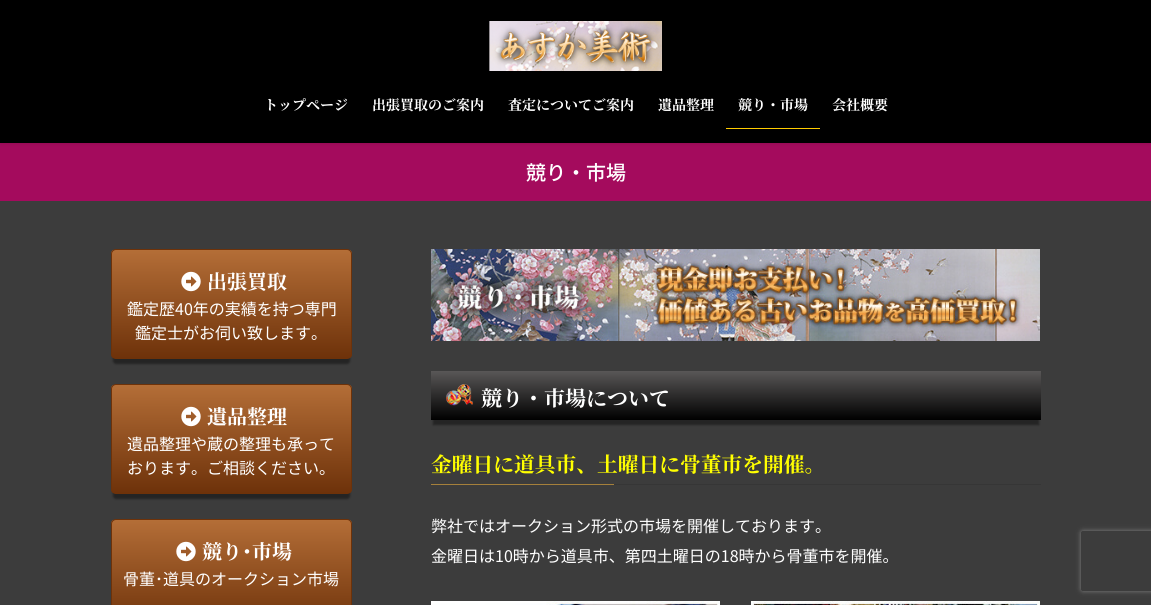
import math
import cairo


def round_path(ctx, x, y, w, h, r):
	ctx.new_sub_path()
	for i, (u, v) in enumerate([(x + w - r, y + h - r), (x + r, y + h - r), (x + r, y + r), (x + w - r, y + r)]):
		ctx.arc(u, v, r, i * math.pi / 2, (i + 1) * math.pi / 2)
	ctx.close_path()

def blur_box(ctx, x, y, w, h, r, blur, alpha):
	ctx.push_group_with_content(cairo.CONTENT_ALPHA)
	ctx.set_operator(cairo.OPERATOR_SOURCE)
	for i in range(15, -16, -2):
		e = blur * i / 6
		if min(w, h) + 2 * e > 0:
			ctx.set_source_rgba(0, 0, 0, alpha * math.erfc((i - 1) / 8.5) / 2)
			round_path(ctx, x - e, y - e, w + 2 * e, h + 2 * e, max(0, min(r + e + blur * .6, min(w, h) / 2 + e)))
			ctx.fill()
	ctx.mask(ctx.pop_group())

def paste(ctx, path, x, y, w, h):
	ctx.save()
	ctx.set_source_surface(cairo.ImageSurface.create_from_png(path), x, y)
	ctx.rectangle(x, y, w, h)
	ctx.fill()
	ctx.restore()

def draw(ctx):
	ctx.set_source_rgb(0.235, 0.235, 0.235)
	ctx.paint()
	ctx.set_source_rgb(0.643, 0.043, 0.365)
	ctx.rectangle(0, 143, 1151, 58)
	ctx.fill()
	ctx.set_source_rgb(0, 0, 0)
	blur_box(ctx, 0, 1, 1151, 143, 0, 1.5, 0.1)
	ctx.set_source_rgb(0, 0, 0)
	ctx.rectangle(0, 0, 1151, 143)
	ctx.fill()
	paste(ctx, 'media/1.png', 489, 21, 173, 50)
	ctx.select_font_face('Noto Serif JP', cairo.FONT_SLANT_NORMAL, cairo.FONT_WEIGHT_BOLD)
	ctx.set_font_size(14)
	ctx.set_source_rgb(1, 1, 1)
	for x, y, s in [
		(264, 110, 'トップページ'),
		(372, 110, '出張買取のご案内'),
		(508, 110, '査定についてご案内'),
		(658, 110, '遺品整理'),
		(738, 110, '競り・市場'),
	]:
		ctx.move_to(x, y)
		ctx.show_text(s)
	ctx.set_source_rgb(1, 0.8, 0)
	ctx.rectangle(726, 128, 94, 1)
	ctx.fill()
	ctx.set_source_rgb(1, 1, 1)
	ctx.move_to(832, 110)
	ctx.show_text('会社概要')
	ctx.select_font_face('Noto Sans JP Medium')
	ctx.set_font_size(20)
	ctx.move_to(526, 180)
	ctx.show_text('競り・市場')
	ctx.set_source_rgb(0, 0, 0)
	blur_box(ctx, 113, 258, 237, 106, 3, 1, 0.4)
	ctx.save()
	round_path(ctx, 111, 249, 241, 110, 5)
	ctx.clip()
	gradient = cairo.LinearGradient(232, 250, 232, 358)
	gradient.add_color_stop_rgba(0, 0.706, 0.431, 0.216, 1)
	gradient.add_color_stop_rgba(1, 0.431, 0.196, 0.039, 1)
	ctx.set_source(gradient)
	ctx.rectangle(111, 250, 241, 108)
	ctx.fill()
	ctx.restore()
	round_path(ctx, 111.5, 249.5, 240, 109, 4.5)
	ctx.set_source_rgb(0.431, 0.196, 0.039)
	ctx.set_line_width(1)
	ctx.stroke()
	paste(ctx, 'media/2.png', 181, 271, 20, 21)
	ctx.select_font_face('Noto Serif JP', cairo.FONT_SLANT_NORMAL, cairo.FONT_WEIGHT_BOLD)
	ctx.set_source_rgb(1, 1, 1)
	ctx.move_to(207, 289)
	ctx.show_text('出張買取')
	ctx.select_font_face('Noto Sans JP')
	ctx.set_font_size(16)
	ctx.move_to(127, 315)
	ctx.show_text('鑑定歴40年の実績を持つ専門')
	ctx.move_to(135, 339)
	ctx.show_text('鑑定士がお伺い致します。')
	ctx.set_source_rgb(0, 0, 0)
	blur_box(ctx, 113, 393, 237, 106, 3, 1, 0.4)
	ctx.save()
	round_path(ctx, 111, 384, 241, 110, 5)
	ctx.clip()
	gradient = cairo.LinearGradient(232, 385, 232, 493)
	gradient.add_color_stop_rgba(0, 0.706, 0.431, 0.216, 1)
	gradient.add_color_stop_rgba(1, 0.431, 0.196, 0.039, 1)
	ctx.set_source(gradient)
	ctx.rectangle(111, 385, 241, 108)
	ctx.fill()
	ctx.restore()
	round_path(ctx, 111.5, 384.5, 240, 109, 4.5)
	ctx.set_source_rgb(0.431, 0.196, 0.039)
	ctx.stroke()
	paste(ctx, 'media/2.png', 181, 406, 20, 21)
	ctx.select_font_face('Noto Serif JP', cairo.FONT_SLANT_NORMAL, cairo.FONT_WEIGHT_BOLD)
	ctx.set_font_size(20)
	ctx.set_source_rgb(1, 1, 1)
	ctx.move_to(207, 424)
	ctx.show_text('遺品整理')
	ctx.select_font_face('Noto Sans JP')
	ctx.set_font_size(16)
	ctx.move_to(127, 450)
	ctx.show_text('遺品整理や蔵の整理も承って')
	ctx.move_to(127, 474)
	ctx.show_text('おります。ご相談ください。')
	ctx.save()
	round_path(ctx, 111, 519, 241, 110, 5)
	ctx.clip()
	gradient = cairo.LinearGradient(232, 520, 232, 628)
	gradient.add_color_stop_rgba(0, 0.706, 0.431, 0.216, 1)
	gradient.add_color_stop_rgba(1, 0.431, 0.196, 0.039, 1)
	ctx.set_source(gradient)
	ctx.rectangle(111, 520, 241, 85)
	ctx.fill()
	ctx.restore()
	round_path(ctx, 111.5, 519.5, 240, 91, 4.5)
	ctx.set_source_rgb(0.431, 0.196, 0.039)
	ctx.stroke()
	paste(ctx, 'media/2.png', 176, 541, 20, 21)
	ctx.select_font_face('Noto Serif JP', cairo.FONT_SLANT_NORMAL, cairo.FONT_WEIGHT_BOLD)
	ctx.set_font_size(20)
	ctx.set_source_rgb(1, 1, 1)
	ctx.move_to(202, 559)
	ctx.show_text('競り･市場')
	ctx.select_font_face('Noto Sans JP')
	ctx.set_font_size(16)
	ctx.move_to(123, 585)
	ctx.show_text('骨董･道具のオークション市場')
	paste(ctx, 'media/3.png', 431, 249, 609, 92)
	ctx.set_source_rgb(0, 0, 0)
	blur_box(ctx, 433, 380, 606, 45, 0, 1, 0.4)
	gradient = cairo.LinearGradient(736, 371, 736, 420)
	gradient.add_color_stop_rgba(0, 0.349, 0.341, 0.341, 1)
	gradient.add_color_stop_rgba(1, 0, 0, 0, 1)
	ctx.set_source(gradient)
	ctx.rectangle(431, 371, 610, 49)
	ctx.fill()
	paste(ctx, 'media/4.png', 446, 384, 27, 22)
	ctx.select_font_face('Noto Serif JP', cairo.FONT_SLANT_NORMAL, cairo.FONT_WEIGHT_BOLD)
	ctx.set_font_size(21)
	ctx.set_source_rgb(1, 1, 1)
	ctx.move_to(481, 406)
	ctx.show_text('競り・市場について')
	ctx.set_source_rgb(0.212, 0.212, 0.212)
	ctx.rectangle(614, 484, 427, 1)
	ctx.fill()
	ctx.set_font_size(20.75)
	ctx.set_source_rgb(1, 1, 0)
	ctx.move_to(431, 472)
	ctx.show_text('金曜日に道具市、土曜日に骨董市を開催。')
	ctx.set_source_rgb(0.647, 0.502, 0.231)
	ctx.rectangle(431, 484, 183, 1)
	ctx.fill()
	ctx.select_font_face('Noto Sans JP')
	ctx.set_font_size(16)
	ctx.set_source_rgb(1, 1, 1)
	ctx.move_to(431, 532)
	ctx.show_text('弊社ではオークション形式の市場を開催しております。')
	ctx.move_to(431, 562)
	ctx.show_text('金曜日は10時から道具市、第四土曜日の18時から骨董市を開催。')
	paste(ctx, 'media/5.png', 431, 601, 289, 4)
	paste(ctx, 'media/6.png', 751, 601, 289, 4)
	ctx.save()
	ctx.set_fill_rule(cairo.FILL_RULE_EVEN_ODD)
	ctx.new_path()
	ctx.move_to(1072, 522)
	ctx.line_to(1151, 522)
	ctx.line_to(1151, 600)
	ctx.line_to(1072, 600)
	ctx.close_path()
	ctx.move_to(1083, 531)
	ctx.line_to(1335, 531)
	ctx.curve_to(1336, 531, 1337, 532, 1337, 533)
	ctx.line_to(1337, 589)
	ctx.curve_to(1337, 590, 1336, 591, 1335, 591)
	ctx.line_to(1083, 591)
	ctx.curve_to(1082, 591, 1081, 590, 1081, 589)
	ctx.line_to(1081, 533)
	ctx.curve_to(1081, 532, 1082, 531, 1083, 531)
	ctx.close_path()
	ctx.clip()
	ctx.set_source_rgb(0.502, 0.502, 0.502)
	blur_box(ctx, 1081, 531, 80, 60, 2, 2.5, 1)
	ctx.restore()


surface = cairo.ImageSurface(cairo.FORMAT_RGB24, 1151, 605)
ctx = cairo.Context(surface)
options = cairo.FontOptions()
options.set_hint_metrics(cairo.HINT_METRICS_OFF)
options.set_hint_style(cairo.HINT_STYLE_NONE)
ctx.set_font_options(options)
ctx.set_miter_limit(4)
draw(ctx)
surface.write_to_png('image.png')
